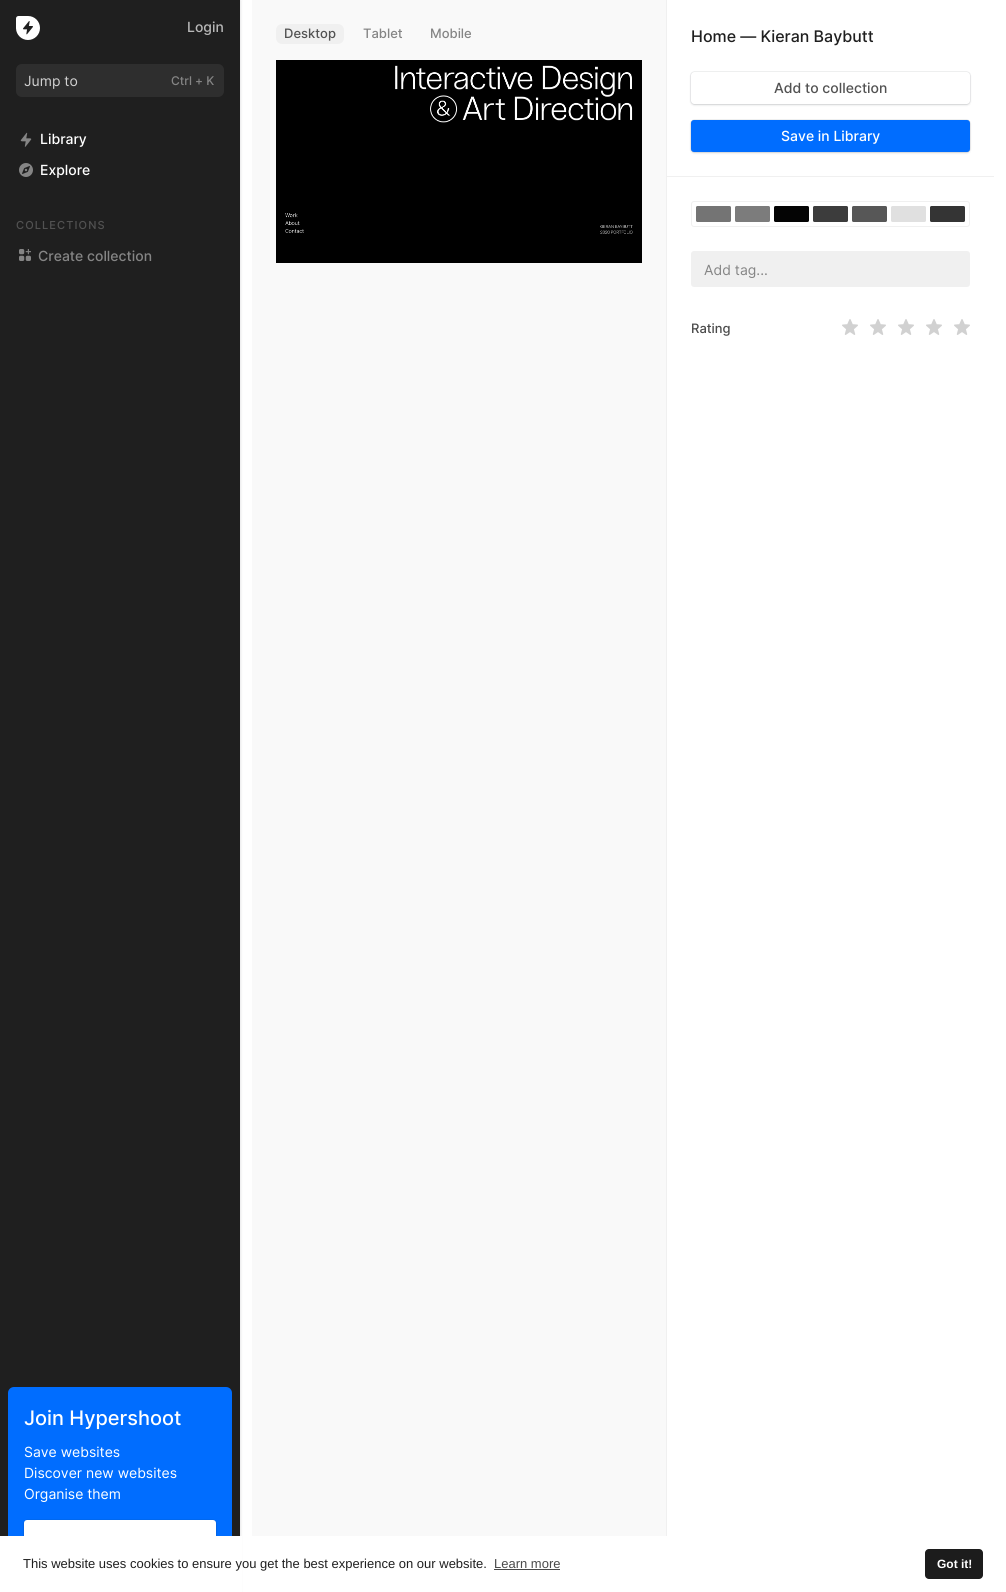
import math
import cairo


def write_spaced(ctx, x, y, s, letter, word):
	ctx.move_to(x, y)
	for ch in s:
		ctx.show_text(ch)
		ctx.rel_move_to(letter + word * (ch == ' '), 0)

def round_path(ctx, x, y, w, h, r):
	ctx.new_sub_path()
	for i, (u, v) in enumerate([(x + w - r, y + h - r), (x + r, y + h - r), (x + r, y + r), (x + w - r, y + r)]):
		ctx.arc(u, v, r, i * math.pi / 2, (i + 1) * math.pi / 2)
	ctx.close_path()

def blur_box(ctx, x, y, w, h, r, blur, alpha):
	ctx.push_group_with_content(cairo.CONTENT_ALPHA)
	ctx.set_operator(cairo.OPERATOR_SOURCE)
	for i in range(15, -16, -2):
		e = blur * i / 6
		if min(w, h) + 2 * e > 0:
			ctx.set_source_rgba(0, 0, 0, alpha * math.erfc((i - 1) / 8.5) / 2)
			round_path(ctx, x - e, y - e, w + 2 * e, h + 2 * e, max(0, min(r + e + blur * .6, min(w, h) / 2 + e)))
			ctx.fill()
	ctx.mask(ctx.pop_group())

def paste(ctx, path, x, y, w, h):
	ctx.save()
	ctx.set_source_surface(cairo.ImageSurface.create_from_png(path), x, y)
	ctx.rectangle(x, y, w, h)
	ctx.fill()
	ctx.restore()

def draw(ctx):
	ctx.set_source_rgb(1, 1, 1)
	ctx.paint()
	ctx.set_source_rgb(0.094, 0.118, 0.153)
	blur_box(ctx, 1, 0, 240, 1592, 0, 1, 0.1)
	ctx.set_source_rgb(0.122, 0.122, 0.122)
	ctx.rectangle(0, 0, 240, 1536)
	ctx.fill()
	paste(ctx, 'media/1.png', 16, 16, 24, 24)
	ctx.select_font_face('Inter Medium')
	ctx.set_font_size(14)
	ctx.set_source_rgb(0.722, 0.722, 0.722)
	ctx.move_to(187, 32)
	ctx.show_text('Login')
	ctx.set_source_rgb(0.18, 0.18, 0.18)
	round_path(ctx, 16, 64, 208, 33, 6)
	ctx.fill()
	ctx.select_font_face('Inter')
	ctx.set_source_rgb(0.82, 0.82, 0.82)
	ctx.move_to(24, 86)
	ctx.show_text('Jump to')
	ctx.select_font_face('Inter Medium')
	ctx.set_font_size(12)
	ctx.set_source_rgb(0.522, 0.522, 0.522)
	ctx.move_to(171, 85)
	ctx.show_text('Ctrl + K')
	paste(ctx, 'media/2.png', 20, 132, 12, 15)
	ctx.set_font_size(14)
	ctx.set_source_rgb(1, 1, 1)
	ctx.move_to(40, 144)
	ctx.show_text('Library')
	paste(ctx, 'media/3.png', 19, 163, 14, 14)
	ctx.move_to(40, 175)
	ctx.show_text('Explore')
	ctx.set_font_size(11)
	ctx.set_source_rgb(0.322, 0.322, 0.322)
	write_spaced(ctx, 16, 229, 'COLLECTIONS', 1.1, 0)
	paste(ctx, 'media/4.png', 19, 249, 12, 12)
	ctx.set_font_size(14)
	ctx.set_source_rgb(0.522, 0.522, 0.522)
	ctx.move_to(38, 261)
	ctx.show_text('Create collection')
	ctx.set_source_rgb(0, 0.427, 1)
	round_path(ctx, 8, 1387, 224, 181, 6)
	ctx.fill()
	ctx.set_font_size(20)
	ctx.set_source_rgb(1, 1, 1)
	ctx.move_to(24, 1425)
	ctx.show_text('Join Hypershoot')
	ctx.select_font_face('Inter')
	ctx.set_font_size(14)
	for x, y, s in [
		(24, 1457, 'Save websites'),
		(24, 1478, 'Discover new websites'),
		(24, 1499, 'Organise them'),
	]:
		ctx.move_to(x, y)
		ctx.show_text(s)
	ctx.set_source_rgb(0.094, 0.118, 0.153)
	blur_box(ctx, 24, 1520, 192, 32, 3, 0.5, 0.25)
	blur_box(ctx, 24, 1521, 192, 32, 3, 1, 0.15)
	ctx.set_source_rgb(1, 1, 1)
	round_path(ctx, 24, 1520, 192, 32, 3)
	ctx.fill()
	ctx.set_source_rgb(0.976, 0.976, 0.976)
	ctx.rectangle(252, 0, 414, 1536)
	ctx.fill()
	ctx.set_source_rgb(0.941, 0.941, 0.941)
	round_path(ctx, 276, 24, 68, 20, 6)
	ctx.fill()
	ctx.select_font_face('Inter Medium')
	ctx.set_font_size(13)
	ctx.set_source_rgb(0.322, 0.322, 0.322)
	ctx.move_to(284, 38)
	ctx.show_text('Desktop')
	ctx.set_source_rgb(0.522, 0.522, 0.522)
	ctx.move_to(363, 38)
	ctx.show_text('Tablet')
	ctx.move_to(430, 38)
	ctx.show_text('Mobile')
	paste(ctx, 'media/5.png', 276, 60, 366, 203)
	ctx.set_source_rgb(0.941, 0.941, 0.941)
	ctx.rectangle(666, 0, 1, 1536)
	ctx.fill()
	ctx.rectangle(667, 176, 327, 1)
	ctx.fill()
	ctx.set_font_size(16)
	ctx.set_source_rgb(0.122, 0.122, 0.122)
	ctx.move_to(691, 42)
	ctx.show_text('Home — Kieran Baybutt')
	ctx.set_source_rgb(0.094, 0.118, 0.153)
	blur_box(ctx, 691, 72, 279, 32, 3, 0.5, 0.25)
	blur_box(ctx, 691, 73, 279, 32, 3, 1, 0.15)
	ctx.set_source_rgb(1, 1, 1)
	round_path(ctx, 691, 72, 279, 32, 3)
	ctx.fill()
	ctx.set_font_size(14)
	ctx.set_source_rgb(0.322, 0.322, 0.322)
	ctx.move_to(774, 93)
	ctx.show_text('Add to collection')
	ctx.set_source_rgb(0.094, 0.118, 0.153)
	blur_box(ctx, 691, 120, 279, 32, 3, 0.5, 0.25)
	blur_box(ctx, 691, 121, 279, 32, 3, 1, 0.15)
	ctx.set_source_rgb(0, 0.427, 1)
	round_path(ctx, 691, 120, 279, 32, 3)
	ctx.fill()
	ctx.set_source_rgb(1, 1, 1)
	ctx.move_to(781, 141)
	ctx.show_text('Save in Library')
	round_path(ctx, 691.5, 201.5, 278, 25, 2.5)
	ctx.set_source_rgb(0.941, 0.941, 0.941)
	ctx.set_line_width(1)
	ctx.stroke()
	ctx.set_source_rgb(0.455, 0.455, 0.455)
	round_path(ctx, 696, 206, 35, 16, 1.5)
	ctx.fill()
	ctx.set_source_rgb(0.486, 0.486, 0.486)
	round_path(ctx, 735, 206, 35, 16, 1.5)
	ctx.fill()
	ctx.set_source_rgb(0.016, 0.016, 0.016)
	round_path(ctx, 774, 206, 35, 16, 1.5)
	ctx.fill()
	ctx.set_source_rgb(0.235, 0.235, 0.235)
	round_path(ctx, 813, 206, 35, 16, 1.5)
	ctx.fill()
	ctx.set_source_rgb(0.341, 0.341, 0.341)
	round_path(ctx, 852, 206, 35, 16, 1.5)
	ctx.fill()
	ctx.set_source_rgb(0.878, 0.878, 0.878)
	round_path(ctx, 891, 206, 35, 16, 1.5)
	ctx.fill()
	ctx.set_source_rgb(0.204, 0.204, 0.204)
	round_path(ctx, 930, 206, 35, 16, 1.5)
	ctx.fill()
	ctx.set_source_rgb(0.941, 0.941, 0.941)
	round_path(ctx, 691, 251, 279, 36, 3)
	ctx.fill()
	ctx.select_font_face('Inter')
	ctx.set_source_rgb(0.522, 0.522, 0.522)
	ctx.move_to(704, 275)
	ctx.show_text('Add tag...')
	ctx.select_font_face('Inter Medium')
	ctx.set_font_size(13)
	ctx.set_source_rgb(0.29, 0.29, 0.29)
	ctx.move_to(691, 333)
	ctx.show_text('Rating')
	paste(ctx, 'media/6.png', 842, 319, 16, 16)
	paste(ctx, 'media/6.png', 870, 319, 16, 16)
	paste(ctx, 'media/6.png', 898, 319, 16, 16)
	paste(ctx, 'media/6.png', 926, 319, 16, 16)
	paste(ctx, 'media/6.png', 954, 319, 16, 16)
	ctx.set_source_rgb(1, 1, 1)
	ctx.rectangle(0, 1536, 242, 56)
	ctx.fill()
	ctx.select_font_face('Liberation Sans')
	ctx.set_source_rgb(0.122, 0.122, 0.122)
	ctx.move_to(23, 1568)
	ctx.show_text('This website uses cookies to ensure you get the best experience on our website.')
	ctx.set_source_rgb(0.29, 0.29, 0.29)
	ctx.move_to(494, 1568)
	ctx.show_text('Learn more')
	ctx.set_source_rgb(0.286, 0.286, 0.286)
	ctx.rectangle(494, 1569, 66, 1)
	ctx.fill()
	ctx.set_source_rgb(0.11, 0.11, 0.11)
	round_path(ctx, 925, 1549, 58, 30, 4)
	ctx.fill()
	ctx.select_font_face('Liberation Sans', cairo.FONT_SLANT_NORMAL, cairo.FONT_WEIGHT_BOLD)
	ctx.set_font_size(12)
	ctx.set_source_rgb(1, 1, 1)
	ctx.move_to(937, 1568)
	ctx.show_text('Got it!')


surface = cairo.ImageSurface(cairo.FORMAT_RGB24, 1006, 1592)
ctx = cairo.Context(surface)
options = cairo.FontOptions()
options.set_hint_metrics(cairo.HINT_METRICS_OFF)
options.set_hint_style(cairo.HINT_STYLE_NONE)
ctx.set_font_options(options)
ctx.set_miter_limit(4)
draw(ctx)
surface.write_to_png('image.png')
